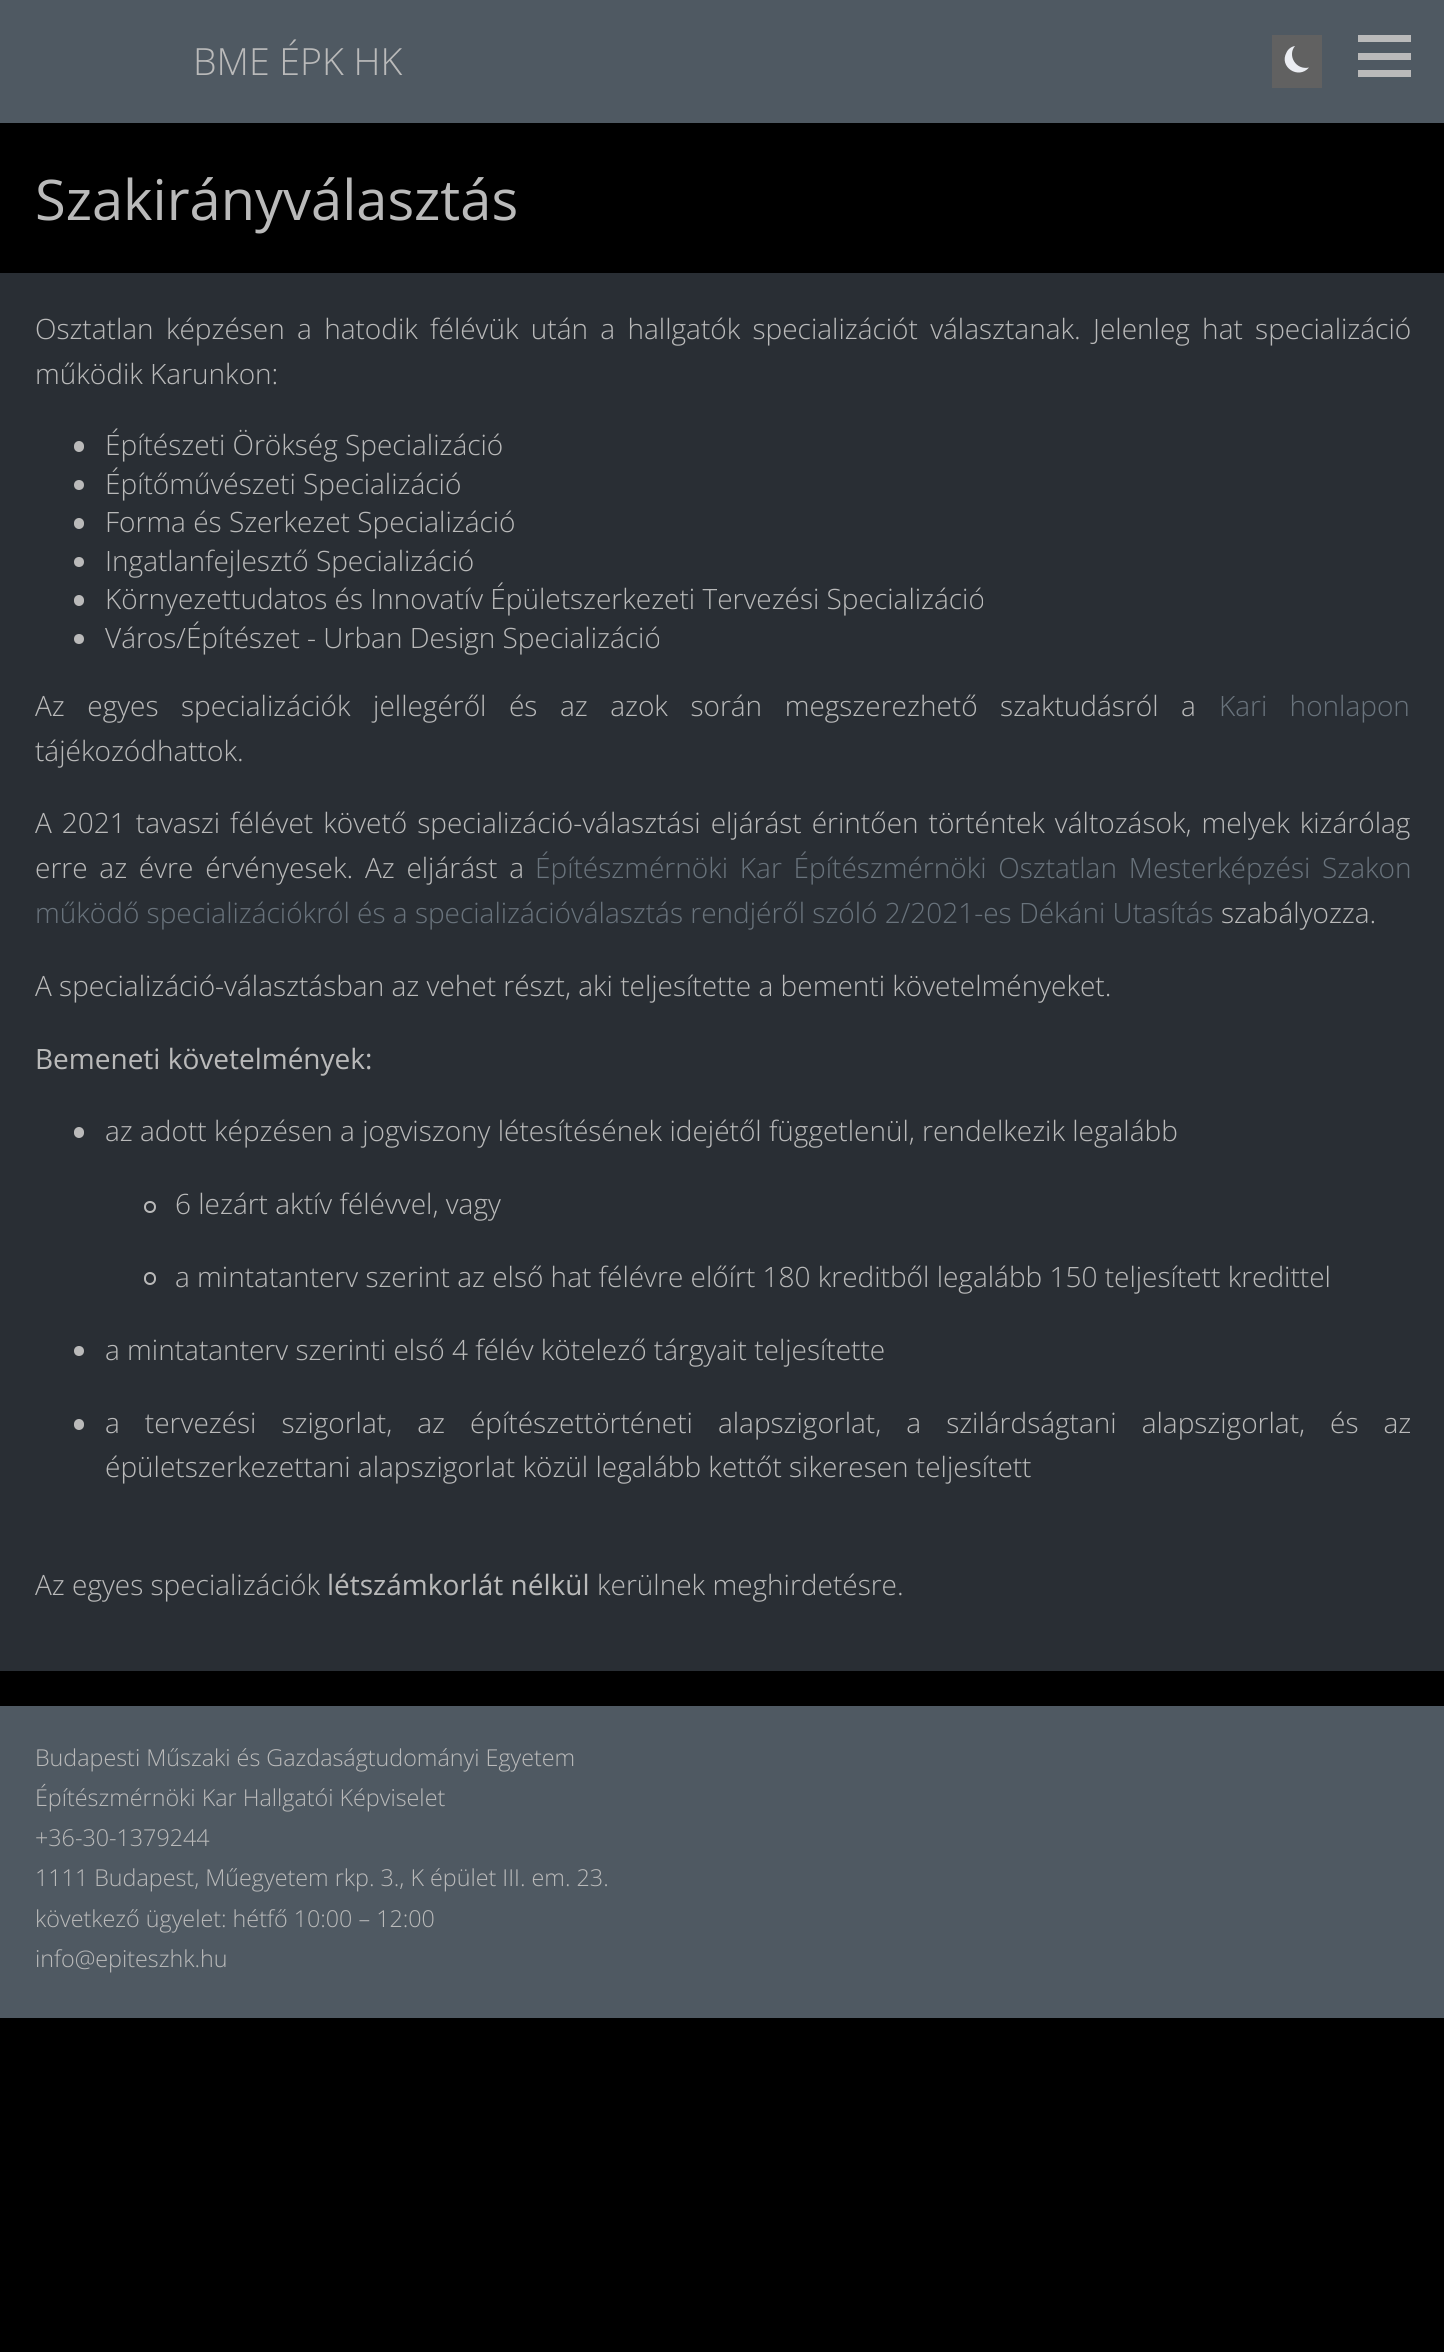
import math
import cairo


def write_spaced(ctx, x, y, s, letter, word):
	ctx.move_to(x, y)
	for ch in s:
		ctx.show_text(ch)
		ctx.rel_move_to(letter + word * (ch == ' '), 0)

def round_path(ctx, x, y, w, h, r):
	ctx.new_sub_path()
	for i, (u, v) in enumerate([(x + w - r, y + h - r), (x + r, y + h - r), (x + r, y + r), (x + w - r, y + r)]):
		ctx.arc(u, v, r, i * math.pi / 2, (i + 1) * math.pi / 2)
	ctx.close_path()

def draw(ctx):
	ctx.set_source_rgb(0, 0, 0)
	ctx.paint()
	ctx.set_source_rgb(0.31, 0.349, 0.384)
	ctx.rectangle(0, 0, 1444, 123)
	ctx.fill()
	ctx.select_font_face('Open Sans Light')
	ctx.set_font_size(37.5)
	ctx.set_source_rgb(0.729, 0.729, 0.729)
	ctx.move_to(193, 75)
	ctx.show_text('BME ÉPK HK')
	ctx.set_source_rgb(0.38, 0.38, 0.38)
	ctx.rectangle(1272, 35, 50, 53)
	ctx.fill()
	ctx.set_source_rgb(0.918, 0.929, 0.949)
	ctx.new_path()
	ctx.move_to(1309, 67.5)
	ctx.curve_to(1298.5, 80, 1278.5, 67, 1286.5, 52.5)
	ctx.curve_to(1288, 49, 1291.5, 46.5, 1295, 46)
	ctx.curve_to(1287, 55.5, 1296, 70.5, 1309, 67.5)
	ctx.close_path()
	ctx.fill()
	ctx.set_source_rgb(0.729, 0.729, 0.729)
	ctx.rectangle(1358, 53, 53, 7)
	ctx.rectangle(1358, 35, 53, 7)
	ctx.rectangle(1358, 70, 53, 7)
	ctx.fill()
	ctx.select_font_face('Open Sans')
	ctx.set_font_size(56)
	ctx.move_to(35, 220)
	ctx.show_text('Szakirányválasztás')
	ctx.set_source_rgb(0.161, 0.18, 0.204)
	ctx.rectangle(0, 273, 1444, 1398)
	ctx.fill()
	ctx.select_font_face('Open Sans Light')
	ctx.set_font_size(28)
	ctx.set_source_rgb(0.729, 0.729, 0.729)
	write_spaced(ctx, 35, 339, 'Osztatlan képzésen a hatodik félévük után a hallgatók specializációt választanak. Jelenleg hat specializáció', 0, 5)
	ctx.move_to(35, 384)
	ctx.show_text('működik Karunkon:')
	round_path(ctx, 74, 441, 10, 11, 5)
	ctx.fill()
	ctx.move_to(105, 455)
	ctx.show_text('Építészeti Örökség Specializáció')
	ctx.new_path()
	ctx.arc(79, 485, 5, 0, 2 * math.pi)
	ctx.fill()
	ctx.move_to(105, 494)
	ctx.show_text('Építőművészeti Specializáció')
	round_path(ctx, 74, 518, 10, 11, 5)
	ctx.fill()
	ctx.move_to(105, 532)
	ctx.show_text('Forma és Szerkezet Specializáció')
	ctx.new_path()
	ctx.arc(79, 562, 5, 0, 2 * math.pi)
	ctx.fill()
	ctx.move_to(105, 571)
	ctx.show_text('Ingatlanfejlesztő Specializáció')
	round_path(ctx, 74, 595, 10, 11, 5)
	ctx.fill()
	ctx.move_to(105, 609)
	ctx.show_text('Környezettudatos és Innovatív Épületszerkezeti Tervezési Specializáció')
	ctx.new_path()
	ctx.arc(79, 639, 5, 0, 2 * math.pi)
	ctx.fill()
	ctx.move_to(105, 648)
	ctx.show_text('Város/Építészet - Urban Design Specializáció')
	write_spaced(ctx, 35, 716, 'Az egyes specializációk jellegéről és az azok során megszerezhető szaktudásról a', 0, 15.25)
	ctx.set_source_rgb(0.412, 0.451, 0.486)
	write_spaced(ctx, 1219, 716, 'Kari honlapon', 0, 15)
	ctx.set_source_rgb(0.729, 0.729, 0.729)
	ctx.move_to(35, 761)
	ctx.show_text('tájékozódhattok.')
	write_spaced(ctx, 35, 833, 'A 2021 tavaszi félévet követő specializáció-választási eljárást érintően történtek változások, melyek kizárólag', 0, 2.75)
	write_spaced(ctx, 35, 878, 'erre az évre érvényesek. Az eljárást a', 0, 4.5)
	ctx.set_source_rgb(0.412, 0.451, 0.486)
	write_spaced(ctx, 535, 878, 'Építészmérnöki Kar Építészmérnöki Osztatlan Mesterképzési Szakon', 0, 4.5)
	ctx.move_to(35, 923)
	ctx.show_text('működő specializációkról és a specializációválasztás rendjéről szóló 2/2021-es Dékáni Utasítás')
	ctx.set_source_rgb(0.729, 0.729, 0.729)
	ctx.move_to(1221, 923)
	ctx.show_text('szabályozza.')
	ctx.move_to(35, 996)
	ctx.show_text('A specializáció-választásban az vehet részt, aki teljesítette a bementi követelményeket.')
	ctx.select_font_face('Open Sans')
	ctx.move_to(35, 1069)
	ctx.show_text('Bemeneti követelmények:')
	round_path(ctx, 74, 1127, 10, 11, 5)
	ctx.fill()
	ctx.select_font_face('Open Sans Light')
	ctx.move_to(105, 1141)
	ctx.show_text('az adott képzésen a jogviszony létesítésének idejétől függetlenül, rendelkezik legalább')
	ctx.new_path()
	ctx.arc(150, 1207, 5, 0, 2 * math.pi)
	ctx.stroke()
	ctx.move_to(175, 1214)
	ctx.show_text('6 lezárt aktív félévvel, vagy')
	round_path(ctx, 145, 1273, 10, 11, 5)
	ctx.stroke()
	ctx.move_to(175, 1287)
	ctx.show_text('a mintatanterv szerint az első hat félévre előírt 180 kreditből legalább 150 teljesített kredittel')
	ctx.new_path()
	ctx.arc(79, 1351, 5, 0, 2 * math.pi)
	ctx.fill()
	ctx.move_to(105, 1360)
	ctx.show_text('a mintatanterv szerinti első 4 félév kötelező tárgyait teljesítette')
	round_path(ctx, 74, 1419, 10, 11, 5)
	ctx.fill()
	write_spaced(ctx, 105, 1433, 'a tervezési szigorlat, az építészettörténeti alapszigorlat, a szilárdságtani alapszigorlat, és az', 0, 17.75)
	ctx.move_to(105, 1477)
	ctx.show_text('épületszerkezettani alapszigorlat közül legalább kettőt sikeresen teljesített')
	ctx.move_to(35, 1595)
	ctx.show_text('Az egyes specializációk')
	ctx.select_font_face('Open Sans')
	ctx.move_to(327, 1595)
	ctx.show_text('létszámkorlát nélkül')
	ctx.select_font_face('Open Sans Light')
	ctx.move_to(597, 1595)
	ctx.show_text('kerülnek meghirdetésre.')
	ctx.set_source_rgb(0.31, 0.349, 0.384)
	ctx.rectangle(0, 1706, 1444, 312)
	ctx.fill()
	ctx.set_font_size(23.3)
	ctx.set_source_rgb(0.729, 0.729, 0.729)
	for x, y, s in [
		(35, 1766, 'Budapesti Műszaki és Gazdaságtudományi Egyetem'),
		(35, 1806, 'Építészmérnöki Kar Hallgatói Képviselet'),
		(35, 1846, '+36-30-1379244'),
		(35, 1886, '1111 Budapest, Műegyetem rkp. 3., K épület III. em. 23.'),
		(35, 1927, 'következő ügyelet: hétfő 10:00 – 12:00'),
		(35, 1967, 'info@epiteszhk.hu'),
	]:
		ctx.move_to(x, y)
		ctx.show_text(s)


surface = cairo.ImageSurface(cairo.FORMAT_RGB24, 1444, 2352)
ctx = cairo.Context(surface)
options = cairo.FontOptions()
options.set_hint_metrics(cairo.HINT_METRICS_OFF)
options.set_hint_style(cairo.HINT_STYLE_NONE)
ctx.set_font_options(options)
ctx.set_miter_limit(4)
draw(ctx)
surface.write_to_png('image.png')
